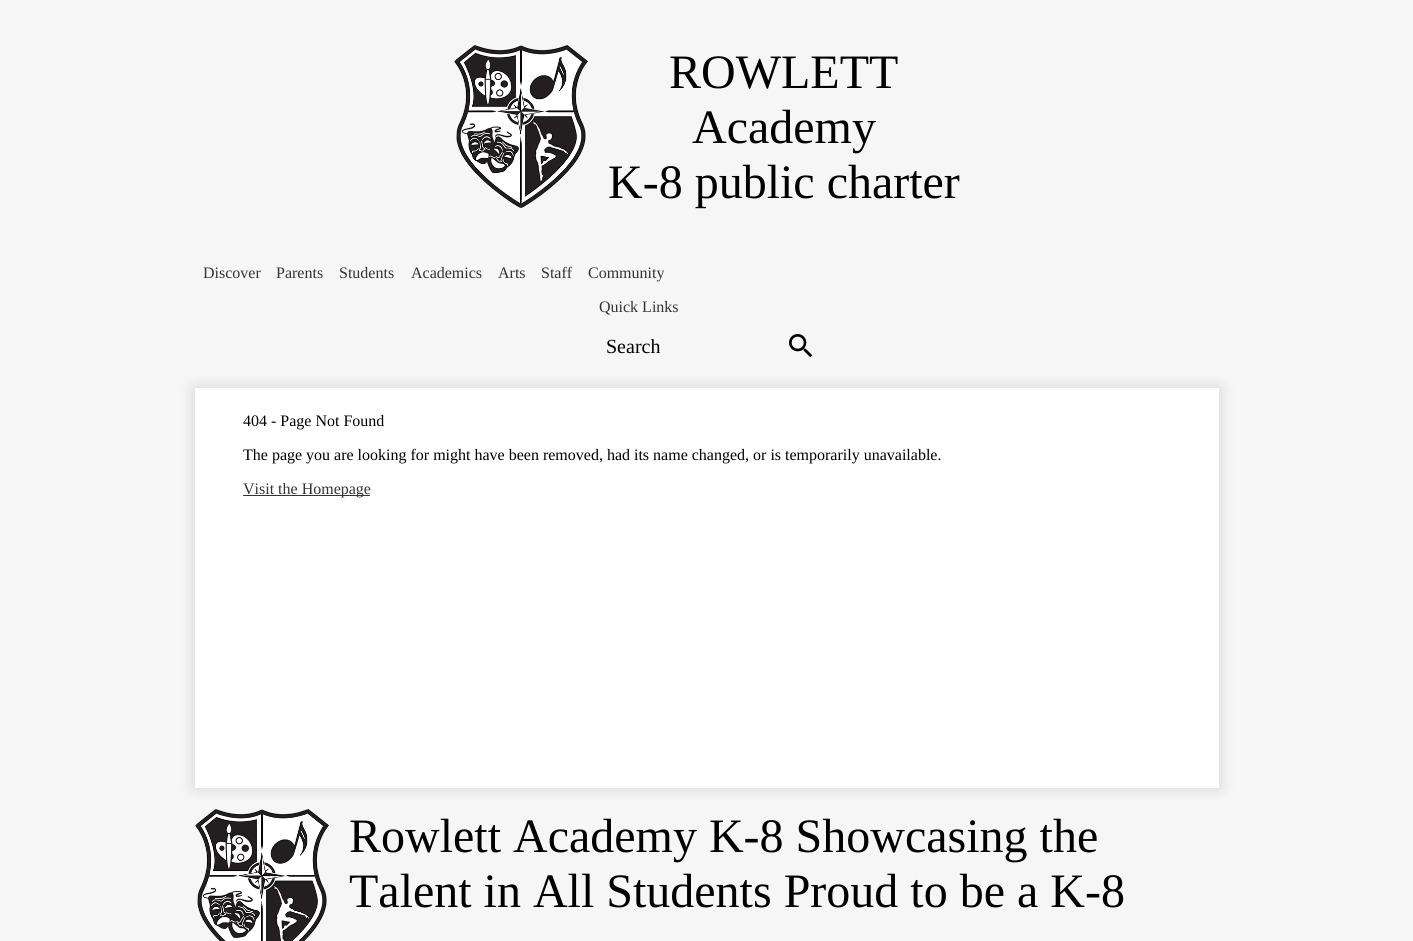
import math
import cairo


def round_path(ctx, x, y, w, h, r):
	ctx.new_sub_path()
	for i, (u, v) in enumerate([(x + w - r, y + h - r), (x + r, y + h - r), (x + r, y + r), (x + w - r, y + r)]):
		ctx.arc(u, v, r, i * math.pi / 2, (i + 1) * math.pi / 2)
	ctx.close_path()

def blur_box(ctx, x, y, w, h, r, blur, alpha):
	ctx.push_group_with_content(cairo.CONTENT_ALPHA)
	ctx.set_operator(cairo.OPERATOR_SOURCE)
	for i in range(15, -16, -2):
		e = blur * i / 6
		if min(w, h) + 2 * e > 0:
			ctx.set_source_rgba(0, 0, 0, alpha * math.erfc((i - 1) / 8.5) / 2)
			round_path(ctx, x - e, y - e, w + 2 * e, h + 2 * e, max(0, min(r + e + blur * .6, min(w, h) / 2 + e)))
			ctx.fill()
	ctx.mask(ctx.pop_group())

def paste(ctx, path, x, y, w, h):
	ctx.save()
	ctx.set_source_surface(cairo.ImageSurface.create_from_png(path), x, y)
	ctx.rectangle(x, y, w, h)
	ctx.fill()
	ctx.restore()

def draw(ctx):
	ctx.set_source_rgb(0.961, 0.961, 0.961)
	ctx.paint()
	paste(ctx, 'media/1.png', 454, 45, 134, 163)
	ctx.select_font_face('Liberation Serif')
	ctx.set_font_size(48)
	ctx.set_source_rgb(0, 0, 0)
	for x, y, s in [
		(669, 88, 'ROWLETT'),
		(692, 143, 'Academy'),
		(608, 198, 'K-8 public charter'),
	]:
		ctx.move_to(x, y)
		ctx.show_text(s)
	ctx.set_font_size(16)
	ctx.set_source_rgb(0.2, 0.2, 0.2)
	for x, y, s in [
		(203, 278, 'Discover'),
		(276, 278, 'Parents'),
		(339, 278, 'Students'),
		(411, 278, 'Academics'),
		(498, 278, 'Arts'),
		(541, 278, 'Staff'),
		(588, 278, 'Community'),
		(599, 312, 'Quick Links'),
	]:
		ctx.move_to(x, y)
		ctx.show_text(s)
	ctx.set_font_size(20)
	ctx.set_source_rgb(0, 0, 0)
	ctx.move_to(606, 353)
	ctx.show_text('Search')
	paste(ctx, 'media/2.png', 789, 334, 24, 24)
	paste(ctx, 'media/3.png', 195, 809, 134, 132)
	ctx.set_source_rgb(0, 0, 0)
	blur_box(ctx, 195, 388, 1024, 400, 0, 8, 0.15)
	ctx.set_source_rgb(1, 1, 1)
	ctx.rectangle(195, 388, 1024, 400)
	ctx.fill()
	ctx.set_font_size(16)
	ctx.set_source_rgb(0, 0, 0)
	ctx.move_to(243, 426)
	ctx.show_text('404 - Page Not Found')
	ctx.move_to(243, 460)
	ctx.show_text('The page you are looking for might have been removed, had its name changed, or is temporarily unavailable.')
	ctx.set_source_rgb(0.2, 0.2, 0.2)
	ctx.rectangle(243, 495, 127, 1)
	ctx.fill()
	ctx.move_to(243, 494)
	ctx.show_text('Visit the Homepage')
	ctx.set_font_size(48)
	ctx.set_source_rgb(0, 0, 0)
	ctx.move_to(349, 852)
	ctx.show_text('Rowlett Academy K-8 Showcasing the')
	ctx.move_to(349, 907)
	ctx.show_text('Talent in All Students Proud to be a K-8')


surface = cairo.ImageSurface(cairo.FORMAT_RGB24, 1413, 941)
ctx = cairo.Context(surface)
options = cairo.FontOptions()
options.set_hint_metrics(cairo.HINT_METRICS_OFF)
options.set_hint_style(cairo.HINT_STYLE_NONE)
ctx.set_font_options(options)
ctx.set_miter_limit(4)
draw(ctx)
surface.write_to_png('image.png')
